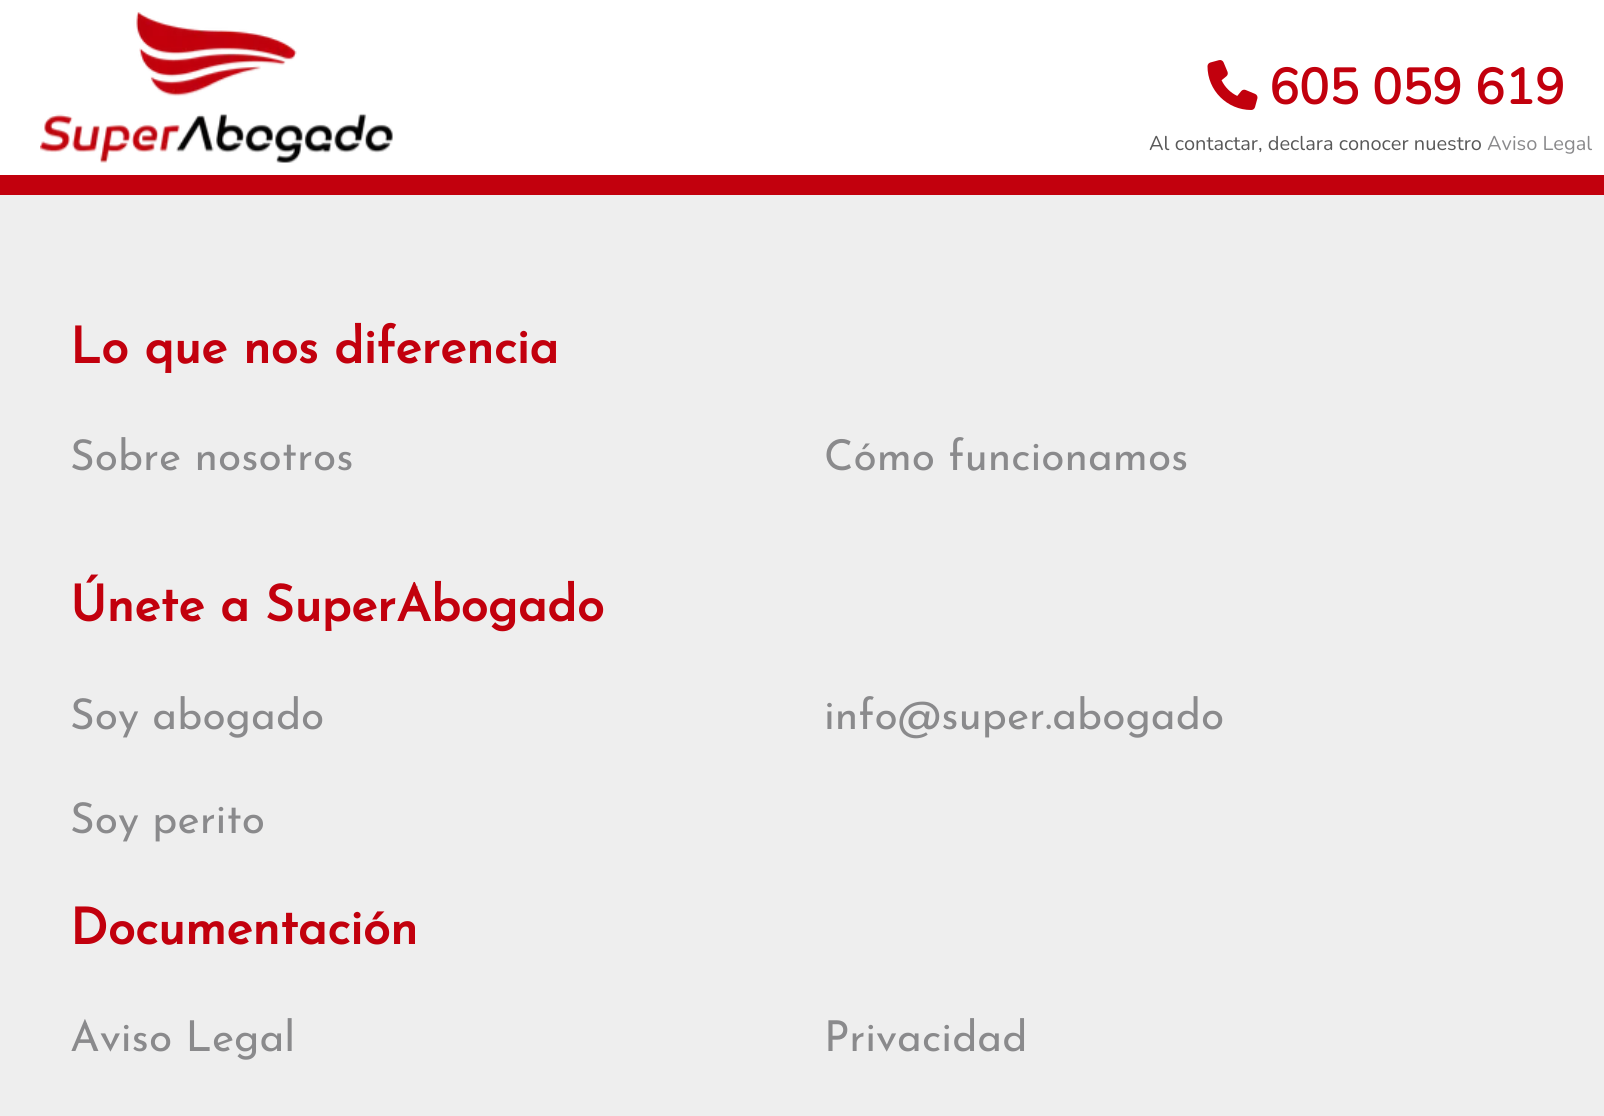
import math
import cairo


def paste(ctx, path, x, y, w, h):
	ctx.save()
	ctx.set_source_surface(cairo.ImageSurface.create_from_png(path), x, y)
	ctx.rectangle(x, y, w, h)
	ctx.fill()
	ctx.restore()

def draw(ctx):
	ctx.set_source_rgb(0.933, 0.933, 0.933)
	ctx.paint()
	ctx.set_source_rgb(1, 1, 1)
	ctx.rectangle(0, 0, 1604, 175)
	ctx.fill()
	ctx.set_source_rgb(0.761, 0, 0.051)
	ctx.rectangle(0, 175, 1604, 20)
	ctx.fill()
	paste(ctx, 'media/1.png', 40, 12, 353, 151)
	paste(ctx, 'media/2.png', 1207, 60, 51, 50)
	ctx.select_font_face('Nunito', cairo.FONT_SLANT_NORMAL, cairo.FONT_WEIGHT_BOLD)
	ctx.set_font_size(50)
	ctx.move_to(1269, 104)
	ctx.show_text('605 059 619')
	ctx.select_font_face('Nunito ExtraLight')
	ctx.set_font_size(20)
	ctx.set_source_rgb(0.349, 0.349, 0.349)
	ctx.move_to(1149, 150)
	ctx.show_text('Al contactar, declara conocer nuestro')
	ctx.set_source_rgb(0.541, 0.541, 0.549)
	ctx.move_to(1487, 150)
	ctx.show_text('Aviso Legal')
	ctx.select_font_face('Josefin Sans', cairo.FONT_SLANT_NORMAL, cairo.FONT_WEIGHT_BOLD)
	ctx.set_font_size(50)
	ctx.set_source_rgb(0.761, 0, 0.051)
	ctx.move_to(70, 363)
	ctx.show_text('Lo que nos diferencia')
	ctx.select_font_face('Josefin Sans Thin')
	ctx.set_font_size(42.5)
	ctx.set_source_rgb(0.541, 0.541, 0.549)
	ctx.move_to(70, 470)
	ctx.show_text('Sobre nosotros')
	ctx.move_to(824, 470)
	ctx.show_text('Cómo funcionamos')
	ctx.select_font_face('Josefin Sans', cairo.FONT_SLANT_NORMAL, cairo.FONT_WEIGHT_BOLD)
	ctx.set_font_size(50)
	ctx.set_source_rgb(0.761, 0, 0.051)
	ctx.move_to(70, 621)
	ctx.show_text('Únete a SuperAbogado')
	ctx.select_font_face('Josefin Sans Thin')
	ctx.set_font_size(42.5)
	ctx.set_source_rgb(0.541, 0.541, 0.549)
	for x, y, s in [
		(70, 729, 'Soy abogado'),
		(824, 729, 'info@super.abogado'),
		(70, 833, 'Soy perito'),
	]:
		ctx.move_to(x, y)
		ctx.show_text(s)
	ctx.select_font_face('Josefin Sans', cairo.FONT_SLANT_NORMAL, cairo.FONT_WEIGHT_BOLD)
	ctx.set_font_size(50)
	ctx.set_source_rgb(0.761, 0, 0.051)
	ctx.move_to(70, 944)
	ctx.show_text('Documentación')
	ctx.select_font_face('Josefin Sans Thin')
	ctx.set_font_size(42.5)
	ctx.set_source_rgb(0.541, 0.541, 0.549)
	ctx.move_to(70, 1051)
	ctx.show_text('Aviso Legal')
	ctx.move_to(824, 1051)
	ctx.show_text('Privacidad')


surface = cairo.ImageSurface(cairo.FORMAT_RGB24, 1604, 1116)
ctx = cairo.Context(surface)
options = cairo.FontOptions()
options.set_hint_metrics(cairo.HINT_METRICS_OFF)
options.set_hint_style(cairo.HINT_STYLE_NONE)
ctx.set_font_options(options)
ctx.set_miter_limit(4)
draw(ctx)
surface.write_to_png('image.png')
